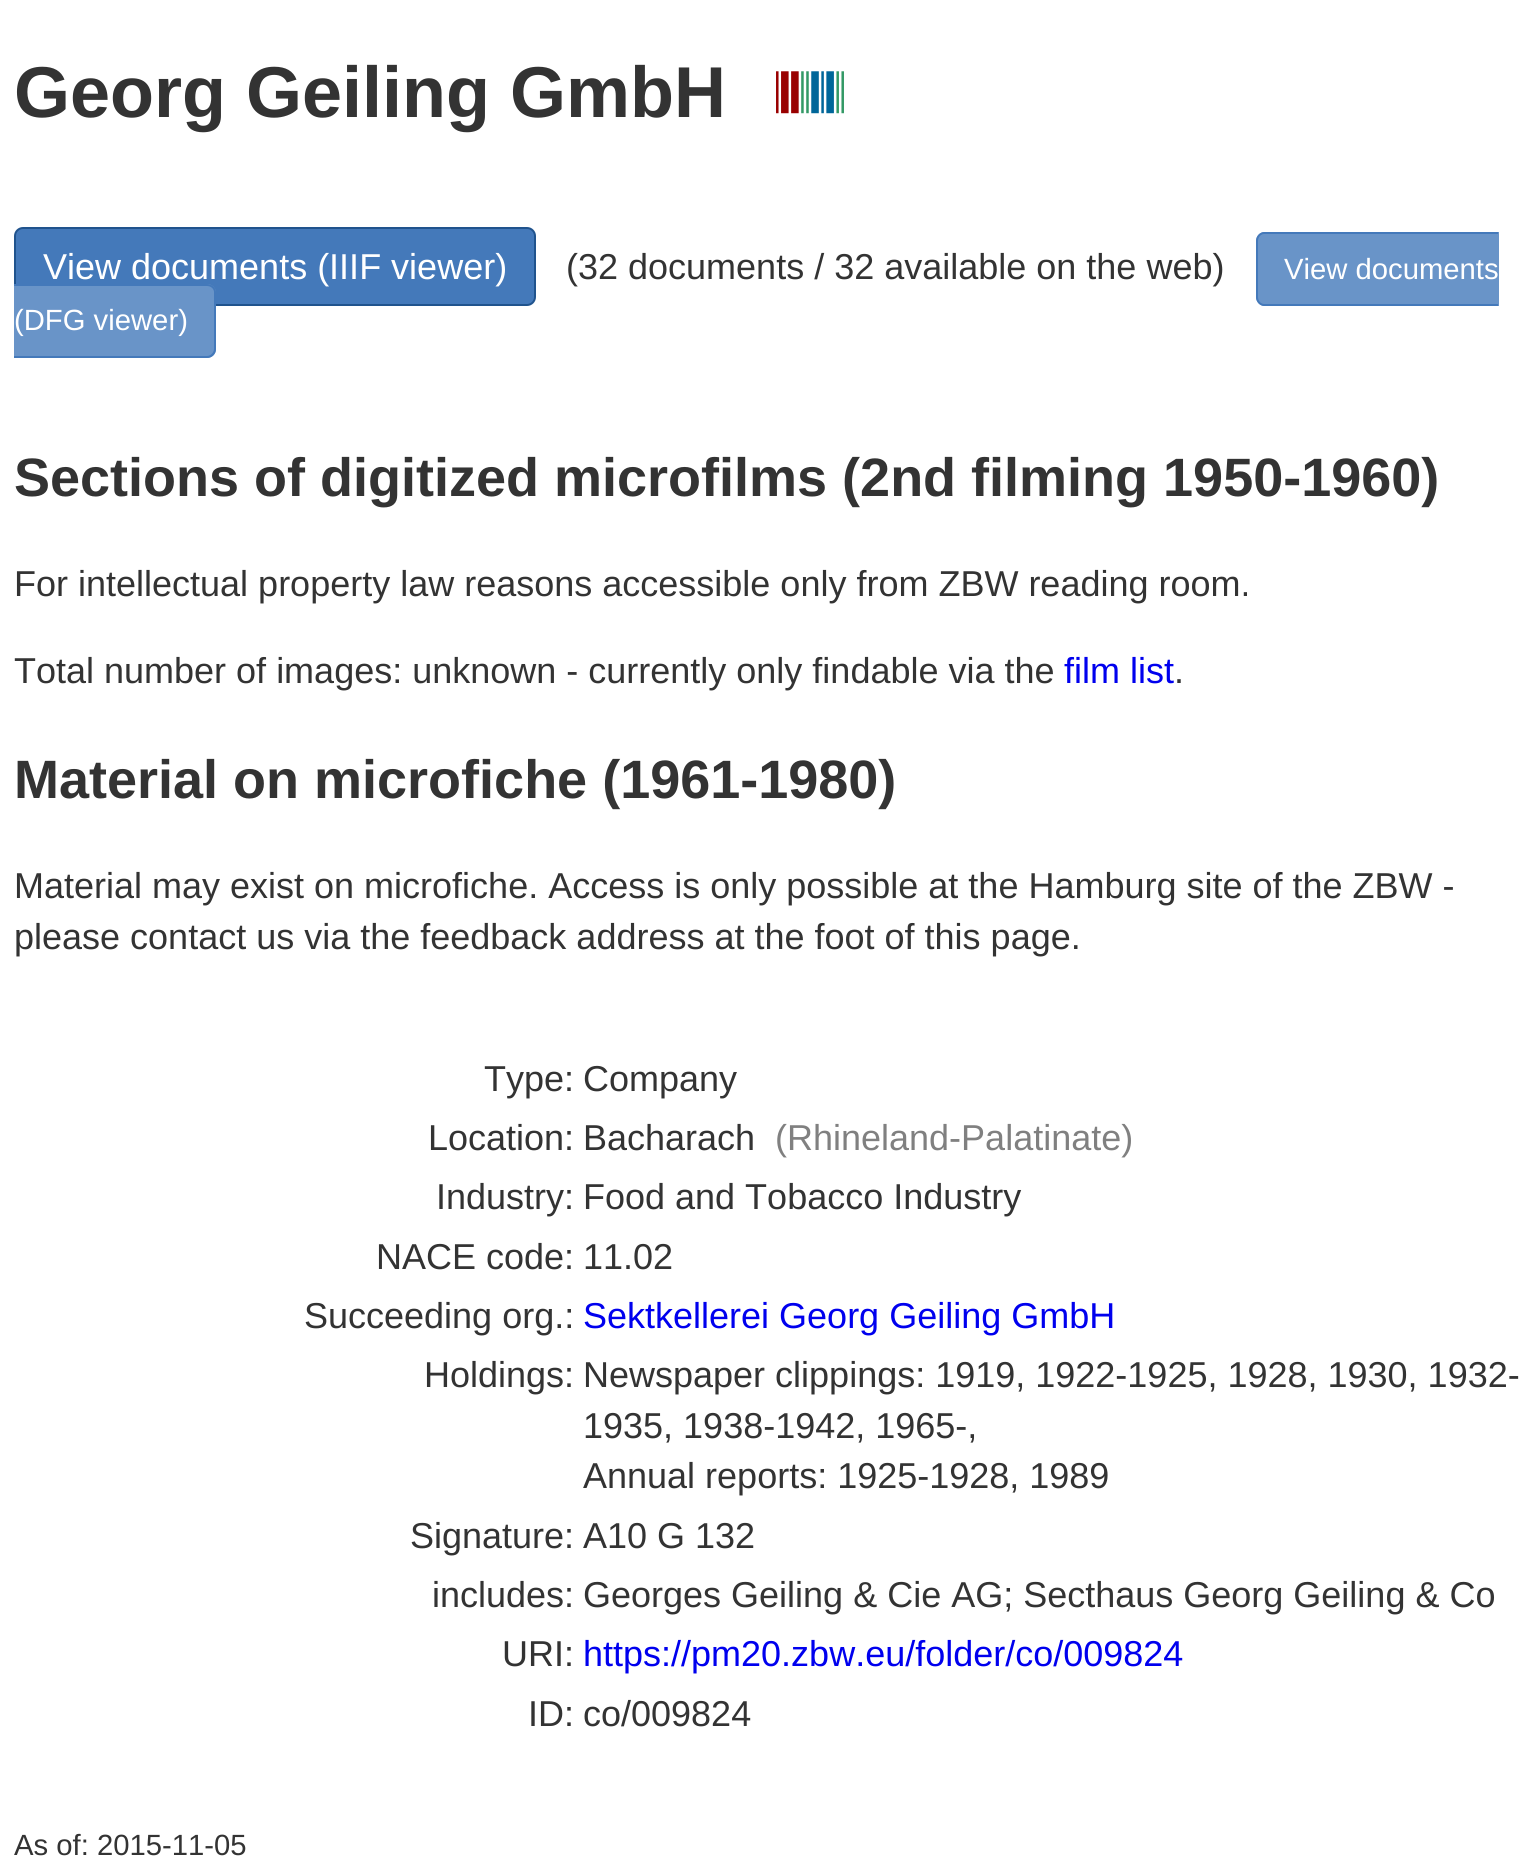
import math
import cairo


def round_path(ctx, x, y, w, h, r):
	ctx.new_sub_path()
	for i, (u, v) in enumerate([(x + w - r, y + h - r), (x + r, y + h - r), (x + r, y + r), (x + w - r, y + r)]):
		ctx.arc(u, v, r, i * math.pi / 2, (i + 1) * math.pi / 2)
	ctx.close_path()

def paste(ctx, path, x, y, w, h):
	ctx.save()
	ctx.set_source_surface(cairo.ImageSurface.create_from_png(path), x, y)
	ctx.rectangle(x, y, w, h)
	ctx.fill()
	ctx.restore()

def draw(ctx):
	ctx.set_source_rgb(1, 1, 1)
	ctx.paint()
	ctx.select_font_face('Liberation Sans', cairo.FONT_SLANT_NORMAL, cairo.FONT_WEIGHT_BOLD)
	ctx.set_font_size(72)
	ctx.set_source_rgb(0.2, 0.2, 0.2)
	ctx.move_to(14, 117)
	ctx.show_text('Georg Geiling GmbH')
	paste(ctx, 'media/1.png', 776, 71, 68, 43)
	ctx.set_source_rgb(0.267, 0.475, 0.729)
	round_path(ctx, 15, 228, 520, 77, 8)
	ctx.fill_preserve()
	ctx.set_source_rgb(0.125, 0.325, 0.553)
	ctx.stroke()
	ctx.select_font_face('Liberation Sans')
	ctx.set_font_size(36)
	ctx.set_source_rgb(1, 1, 1)
	ctx.move_to(43, 279)
	ctx.show_text('View documents (IIIF viewer)')
	ctx.set_source_rgb(0.2, 0.2, 0.2)
	ctx.move_to(566, 279)
	ctx.show_text('(32 documents / 32 available on the web)')
	ctx.set_source_rgb(0.412, 0.58, 0.784)
	ctx.new_path()
	ctx.move_to(1265, 232)
	ctx.line_to(1499, 232)
	ctx.line_to(1499, 306)
	ctx.line_to(1265, 306)
	ctx.curve_to(1260, 306, 1256, 302, 1256, 297)
	ctx.line_to(1256, 241)
	ctx.curve_to(1256, 236, 1260, 232, 1265, 232)
	ctx.close_path()
	ctx.fill()
	ctx.set_source_rgb(0.267, 0.475, 0.729)
	ctx.set_fill_rule(cairo.FILL_RULE_EVEN_ODD)
	ctx.new_path()
	ctx.move_to(1264, 232)
	ctx.line_to(1498, 232)
	ctx.line_to(1498, 306)
	ctx.line_to(1264, 306)
	ctx.curve_to(1260, 306, 1256, 302, 1256, 297)
	ctx.line_to(1256, 241)
	ctx.curve_to(1256, 236, 1260, 232, 1264, 232)
	ctx.close_path()
	ctx.move_to(1264, 234)
	ctx.line_to(1498, 234)
	ctx.line_to(1498, 304)
	ctx.line_to(1264, 304)
	ctx.curve_to(1261, 304, 1258, 301, 1258, 297)
	ctx.line_to(1258, 241)
	ctx.curve_to(1258, 237, 1261, 234, 1264, 234)
	ctx.close_path()
	ctx.fill()
	ctx.set_font_size(29.25)
	ctx.set_source_rgb(1, 1, 1)
	ctx.move_to(1284, 279)
	ctx.show_text('View documents')
	ctx.set_source_rgb(0.412, 0.58, 0.784)
	ctx.new_path()
	ctx.move_to(14, 284)
	ctx.line_to(207, 284)
	ctx.curve_to(212, 284, 216, 288, 216, 293)
	ctx.line_to(216, 349)
	ctx.curve_to(216, 354, 212, 358, 207, 358)
	ctx.line_to(14, 358)
	ctx.close_path()
	ctx.fill()
	ctx.set_source_rgb(0.267, 0.475, 0.729)
	ctx.new_path()
	ctx.move_to(14, 284)
	ctx.line_to(207, 284)
	ctx.curve_to(212, 284, 216, 288, 216, 292)
	ctx.line_to(216, 349)
	ctx.curve_to(216, 354, 212, 358, 207, 358)
	ctx.line_to(14, 358)
	ctx.close_path()
	ctx.move_to(14, 286)
	ctx.line_to(207, 286)
	ctx.curve_to(211, 286, 214, 289, 214, 292)
	ctx.line_to(214, 349)
	ctx.curve_to(214, 352, 211, 356, 207, 356)
	ctx.line_to(14, 356)
	ctx.close_path()
	ctx.fill()
	ctx.set_source_rgb(1, 1, 1)
	ctx.move_to(14, 330)
	ctx.show_text('(DFG viewer)')
	ctx.select_font_face('Liberation Sans', cairo.FONT_SLANT_NORMAL, cairo.FONT_WEIGHT_BOLD)
	ctx.set_font_size(54)
	ctx.set_source_rgb(0.2, 0.2, 0.2)
	ctx.move_to(14, 496)
	ctx.show_text('Sections of digitized microfilms (2nd filming 1950-1960)')
	ctx.select_font_face('Liberation Sans')
	ctx.set_font_size(36)
	ctx.move_to(14, 596)
	ctx.show_text('For intellectual property law reasons accessible only from ZBW reading room.')
	ctx.move_to(14, 683)
	ctx.show_text('Total number of images: unknown - currently only findable via the')
	ctx.set_source_rgb(0, 0, 0.933)
	ctx.move_to(1064, 683)
	ctx.show_text('film list')
	ctx.set_source_rgb(0.2, 0.2, 0.2)
	ctx.move_to(1174, 683)
	ctx.show_text('.')
	ctx.select_font_face('Liberation Sans', cairo.FONT_SLANT_NORMAL, cairo.FONT_WEIGHT_BOLD)
	ctx.set_font_size(54)
	ctx.move_to(14, 798)
	ctx.show_text('Material on microfiche (1961-1980)')
	ctx.select_font_face('Liberation Sans')
	ctx.set_font_size(36)
	for x, y, s in [
		(14, 898, 'Material may exist on microfiche. Access is only possible at the Hamburg site of the ZBW -'),
		(14, 949, 'please contact us via the feedback address at the foot of this page.'),
		(484, 1091, 'Type:'),
		(583, 1091, 'Company'),
		(428, 1150, 'Location:'),
		(583, 1150, 'Bacharach'),
	]:
		ctx.move_to(x, y)
		ctx.show_text(s)
	ctx.set_source_rgb(0.502, 0.502, 0.502)
	ctx.move_to(775, 1150)
	ctx.show_text('(Rhineland-Palatinate)')
	ctx.set_source_rgb(0.2, 0.2, 0.2)
	for x, y, s in [
		(436, 1209, 'Industry:'),
		(583, 1209, 'Food and Tobacco Industry'),
		(376, 1269, 'NACE code:'),
		(583, 1269, '11.02'),
		(304, 1328, 'Succeeding org.:'),
	]:
		ctx.move_to(x, y)
		ctx.show_text(s)
	ctx.set_source_rgb(0, 0, 0.933)
	ctx.move_to(583, 1328)
	ctx.show_text('Sektkellerei Georg Geiling GmbH')
	ctx.set_source_rgb(0.2, 0.2, 0.2)
	for x, y, s in [
		(424, 1387, 'Holdings:'),
		(583, 1387, 'Newspaper clippings: 1919, 1922-1925, 1928, 1930, 1932-'),
		(583, 1438, '1935, 1938-1942, 1965-,'),
		(583, 1488, 'Annual reports: 1925-1928, 1989'),
		(410, 1548, 'Signature:'),
		(583, 1548, 'A10 G 132'),
		(432, 1607, 'includes:'),
		(583, 1607, 'Georges Geiling & Cie AG; Secthaus Georg Geiling & Co'),
		(502, 1666, 'URI:'),
	]:
		ctx.move_to(x, y)
		ctx.show_text(s)
	ctx.set_source_rgb(0, 0, 0.933)
	ctx.move_to(583, 1666)
	ctx.show_text('https://pm20.zbw.eu/folder/co/009824')
	ctx.set_source_rgb(0.2, 0.2, 0.2)
	ctx.move_to(528, 1726)
	ctx.show_text('ID:')
	ctx.move_to(583, 1726)
	ctx.show_text('co/009824')
	ctx.set_font_size(29.25)
	ctx.move_to(14, 1855)
	ctx.show_text('As of: 2015-11-05')


surface = cairo.ImageSurface(cairo.FORMAT_RGB24, 1538, 1876)
ctx = cairo.Context(surface)
options = cairo.FontOptions()
options.set_hint_metrics(cairo.HINT_METRICS_OFF)
options.set_hint_style(cairo.HINT_STYLE_NONE)
ctx.set_font_options(options)
ctx.set_miter_limit(4)
draw(ctx)
surface.write_to_png('image.png')
